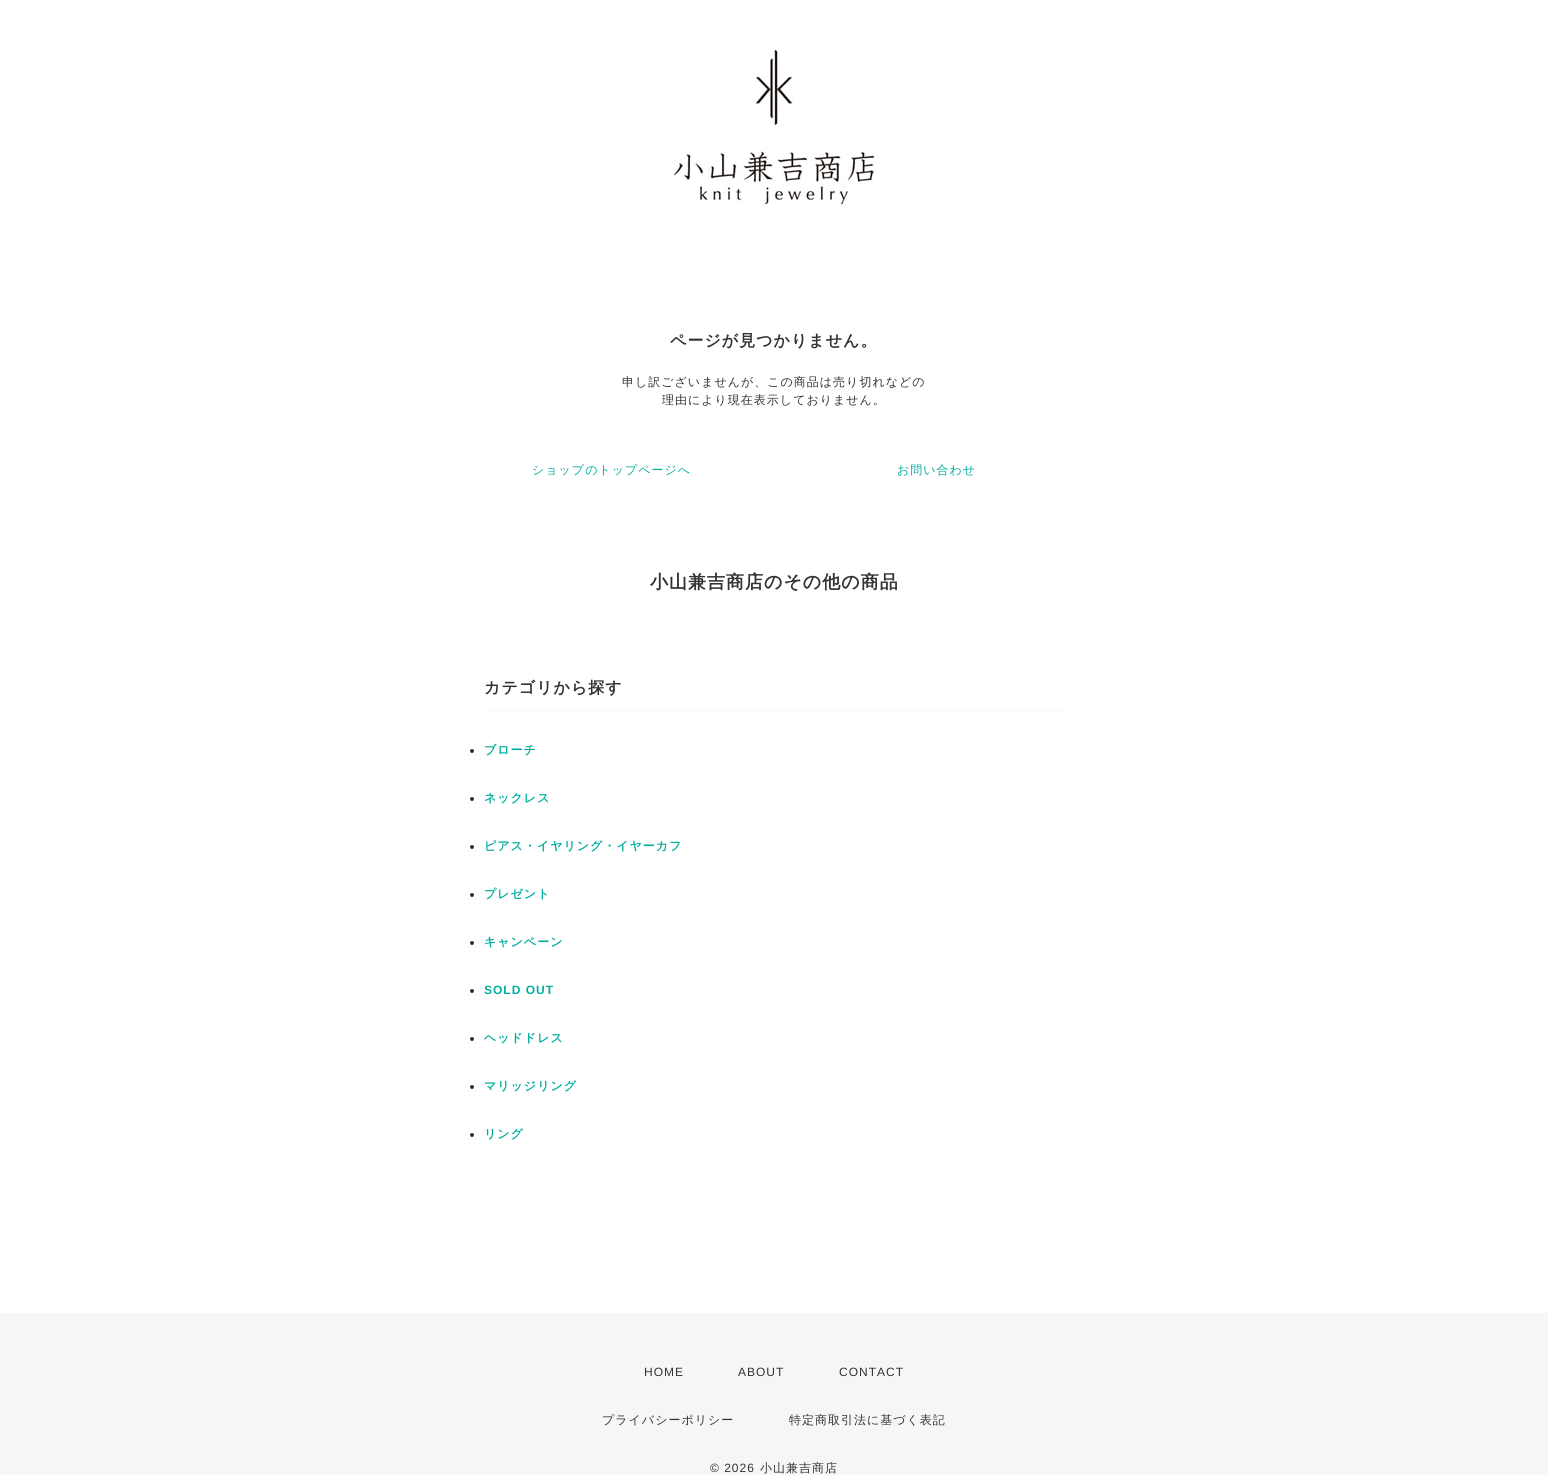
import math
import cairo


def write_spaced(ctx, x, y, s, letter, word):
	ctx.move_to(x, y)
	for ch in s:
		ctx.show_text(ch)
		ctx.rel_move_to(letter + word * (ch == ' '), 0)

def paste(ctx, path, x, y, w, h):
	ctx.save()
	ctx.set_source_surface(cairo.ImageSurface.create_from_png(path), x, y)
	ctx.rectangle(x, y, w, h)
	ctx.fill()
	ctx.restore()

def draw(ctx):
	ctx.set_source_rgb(1, 1, 1)
	ctx.paint()
	paste(ctx, 'media/1.png', 674, 50, 200, 154)
	ctx.select_font_face('WenQuanYi Zen Hei', cairo.FONT_SLANT_NORMAL, cairo.FONT_WEIGHT_BOLD)
	ctx.set_font_size(16)
	ctx.set_source_rgb(0.2, 0.2, 0.2)
	write_spaced(ctx, 670, 346, 'ページが見つかりません。', 1, 0)
	ctx.select_font_face('WenQuanYi Zen Hei Medium')
	ctx.set_font_size(12)
	write_spaced(ctx, 622, 386, '申し訳ございませんが、この商品は売り切れなどの', 1, 0)
	write_spaced(ctx, 662, 404, '理由により現在表示しておりません。', 1, 0)
	ctx.set_source_rgb(0, 0.682, 0.624)
	write_spaced(ctx, 532, 474, 'ショップのトップページへ', 1, 0)
	write_spaced(ctx, 897, 474, 'お問い合わせ', 1, 0)
	ctx.select_font_face('WenQuanYi Zen Hei', cairo.FONT_SLANT_NORMAL, cairo.FONT_WEIGHT_BOLD)
	ctx.set_font_size(18)
	ctx.set_source_rgb(0.2, 0.2, 0.2)
	write_spaced(ctx, 650, 588, '小山兼吉商店のその他の商品', 1, 0)
	ctx.set_source_rgb(0.961, 0.961, 0.961)
	ctx.rectangle(484, 710, 580, 1)
	ctx.fill()
	ctx.set_font_size(16)
	ctx.set_source_rgb(0.2, 0.2, 0.2)
	write_spaced(ctx, 484, 693, 'カテゴリから探す', 1, 0)
	ctx.new_path()
	ctx.arc(472, 751, 2, 0, 2 * math.pi)
	ctx.fill()
	ctx.set_font_size(12)
	ctx.set_source_rgb(0, 0.682, 0.624)
	write_spaced(ctx, 484, 754, 'ブローチ', 1, 0)
	ctx.set_source_rgb(0.2, 0.2, 0.2)
	ctx.new_path()
	ctx.arc(472, 799, 2, 0, 2 * math.pi)
	ctx.fill()
	ctx.set_source_rgb(0, 0.682, 0.624)
	write_spaced(ctx, 484, 802, 'ネックレス', 1, 0)
	ctx.set_source_rgb(0.2, 0.2, 0.2)
	ctx.new_path()
	ctx.arc(472, 847, 2, 0, 2 * math.pi)
	ctx.fill()
	ctx.set_source_rgb(0, 0.682, 0.624)
	write_spaced(ctx, 484, 850, 'ピアス・イヤリング・イヤーカフ', 1, 0)
	ctx.set_source_rgb(0.2, 0.2, 0.2)
	ctx.new_path()
	ctx.arc(472, 895, 2, 0, 2 * math.pi)
	ctx.fill()
	ctx.set_source_rgb(0, 0.682, 0.624)
	write_spaced(ctx, 484, 898, 'プレゼント', 1, 0)
	ctx.set_source_rgb(0.2, 0.2, 0.2)
	ctx.new_path()
	ctx.arc(472, 943, 2, 0, 2 * math.pi)
	ctx.fill()
	ctx.set_source_rgb(0, 0.682, 0.624)
	write_spaced(ctx, 484, 946, 'キャンペーン', 1, 0)
	ctx.set_source_rgb(0.2, 0.2, 0.2)
	ctx.new_path()
	ctx.arc(472, 991, 2, 0, 2 * math.pi)
	ctx.fill()
	ctx.select_font_face('Liberation Sans', cairo.FONT_SLANT_NORMAL, cairo.FONT_WEIGHT_BOLD)
	ctx.set_source_rgb(0, 0.682, 0.624)
	write_spaced(ctx, 484, 994, 'SOLD OUT', 1, 0)
	ctx.set_source_rgb(0.2, 0.2, 0.2)
	ctx.new_path()
	ctx.arc(472, 1039, 2, 0, 2 * math.pi)
	ctx.fill()
	ctx.select_font_face('WenQuanYi Zen Hei', cairo.FONT_SLANT_NORMAL, cairo.FONT_WEIGHT_BOLD)
	ctx.set_source_rgb(0, 0.682, 0.624)
	write_spaced(ctx, 484, 1042, 'ヘッドドレス', 1, 0)
	ctx.set_source_rgb(0.2, 0.2, 0.2)
	ctx.new_path()
	ctx.arc(472, 1087, 2, 0, 2 * math.pi)
	ctx.fill()
	ctx.set_source_rgb(0, 0.682, 0.624)
	write_spaced(ctx, 484, 1090, 'マリッジリング', 1, 0)
	ctx.set_source_rgb(0.2, 0.2, 0.2)
	ctx.new_path()
	ctx.arc(472, 1135, 2, 0, 2 * math.pi)
	ctx.fill()
	ctx.set_source_rgb(0, 0.682, 0.624)
	write_spaced(ctx, 484, 1138, 'リング', 1, 0)
	ctx.set_source_rgb(0.961, 0.961, 0.961)
	ctx.rectangle(0, 1313, 1548, 162)
	ctx.fill()
	ctx.select_font_face('Liberation Sans')
	ctx.set_source_rgb(0.2, 0.2, 0.2)
	for x, y, s in [
		(644, 1376, 'HOME'),
		(738, 1376, 'ABOUT'),
		(839, 1376, 'CONTACT'),
	]:
		write_spaced(ctx, x, y, s, 1, 0)
	ctx.select_font_face('WenQuanYi Zen Hei Medium')
	write_spaced(ctx, 602, 1424, 'プライバシーポリシー', 1, 0)
	write_spaced(ctx, 789, 1424, '特定商取引法に基づく表記', 1, 0)
	ctx.select_font_face('Liberation Sans')
	write_spaced(ctx, 710, 1472, '© 2026', 1, 0)
	ctx.select_font_face('WenQuanYi Zen Hei Medium')
	write_spaced(ctx, 760, 1472, '小山兼吉商店', 1, 0)


surface = cairo.ImageSurface(cairo.FORMAT_RGB24, 1548, 1475)
ctx = cairo.Context(surface)
options = cairo.FontOptions()
options.set_hint_metrics(cairo.HINT_METRICS_OFF)
options.set_hint_style(cairo.HINT_STYLE_NONE)
ctx.set_font_options(options)
ctx.set_miter_limit(4)
draw(ctx)
surface.write_to_png('image.png')
